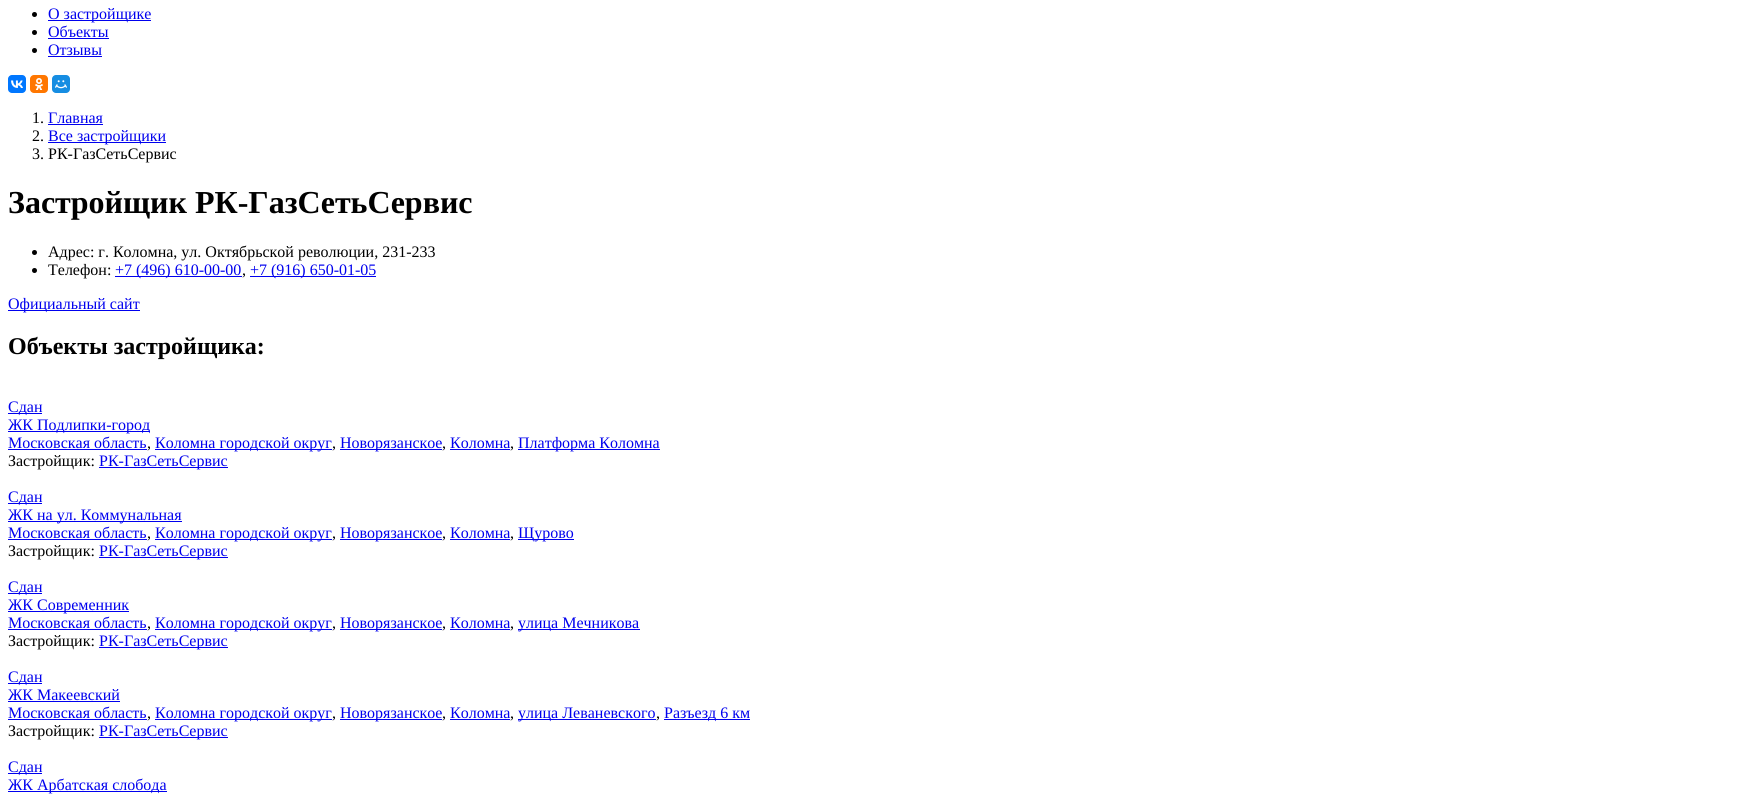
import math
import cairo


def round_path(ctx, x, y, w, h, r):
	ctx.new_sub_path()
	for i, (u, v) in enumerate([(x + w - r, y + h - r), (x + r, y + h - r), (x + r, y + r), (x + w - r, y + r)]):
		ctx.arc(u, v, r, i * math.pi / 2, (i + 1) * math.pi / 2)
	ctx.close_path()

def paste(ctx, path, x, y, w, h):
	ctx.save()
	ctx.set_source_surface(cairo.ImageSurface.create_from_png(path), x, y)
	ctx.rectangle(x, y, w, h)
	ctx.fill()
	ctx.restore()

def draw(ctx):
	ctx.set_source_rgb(1, 1, 1)
	ctx.paint()
	ctx.set_source_rgb(0, 0, 0)
	ctx.arc(34.5, 14.5, 2.5, 0, 2 * math.pi)
	ctx.fill()
	ctx.set_source_rgb(0, 0, 0.933)
	ctx.rectangle(48, 20, 103, 1)
	ctx.fill()
	ctx.select_font_face('Liberation Serif')
	ctx.set_font_size(16)
	ctx.move_to(48, 19)
	ctx.show_text('О застройщике')
	ctx.set_source_rgb(0, 0, 0)
	ctx.new_path()
	ctx.arc(34.5, 32.5, 2.5, 0, 2 * math.pi)
	ctx.fill()
	ctx.set_source_rgb(0, 0, 0.933)
	ctx.move_to(48, 37)
	ctx.show_text('Объекты')
	ctx.rectangle(48, 38, 61, 1)
	ctx.fill()
	ctx.set_source_rgb(0, 0, 0)
	ctx.arc(34.5, 50.5, 2.5, 0, 2 * math.pi)
	ctx.fill()
	ctx.set_source_rgb(0, 0, 0.933)
	ctx.move_to(48, 55)
	ctx.show_text('Отзывы')
	ctx.rectangle(48, 56, 54, 1)
	ctx.fill()
	ctx.set_source_rgb(0, 0.467, 1)
	round_path(ctx, 8, 75, 18, 18, 4)
	ctx.fill()
	paste(ctx, 'media/1.png', 11, 80, 12, 8)
	ctx.set_source_rgb(1, 0.467, 0)
	round_path(ctx, 30, 75, 18, 18, 4)
	ctx.fill()
	paste(ctx, 'media/2.png', 35, 78, 8, 12)
	ctx.set_source_rgb(0.086, 0.553, 0.886)
	round_path(ctx, 52, 75, 18, 18, 4)
	ctx.fill()
	paste(ctx, 'media/3.png', 55, 80, 12, 9)
	ctx.set_source_rgb(0, 0, 0)
	ctx.move_to(32, 123)
	ctx.show_text('1.')
	ctx.set_source_rgb(0, 0, 0.933)
	ctx.move_to(48, 123)
	ctx.show_text('Главная')
	ctx.rectangle(48, 124, 55, 1)
	ctx.fill()
	ctx.set_source_rgb(0, 0, 0)
	ctx.move_to(32, 141)
	ctx.show_text('2.')
	ctx.set_source_rgb(0, 0, 0.933)
	ctx.rectangle(48, 142, 118, 1)
	ctx.fill()
	ctx.move_to(48, 141)
	ctx.show_text('Все застройщики')
	ctx.set_source_rgb(0, 0, 0)
	ctx.move_to(32, 159)
	ctx.show_text('3. РК-ГазСетьСервис')
	ctx.select_font_face('Liberation Serif', cairo.FONT_SLANT_NORMAL, cairo.FONT_WEIGHT_BOLD)
	ctx.set_font_size(32)
	ctx.move_to(8, 213)
	ctx.show_text('Застройщик РК-ГазСетьСервис')
	ctx.new_path()
	ctx.arc(34.5, 252.5, 2.5, 0, 2 * math.pi)
	ctx.fill()
	ctx.select_font_face('Liberation Serif')
	ctx.set_font_size(16)
	ctx.move_to(48, 257)
	ctx.show_text('Адрес: г. Коломна, ул. Октябрьской революции, 231-233')
	ctx.new_path()
	ctx.arc(34.5, 270.5, 2.5, 0, 2 * math.pi)
	ctx.fill()
	ctx.move_to(48, 275)
	ctx.show_text('Телефон:')
	ctx.set_source_rgb(0, 0, 0.933)
	ctx.rectangle(115, 276, 127, 1)
	ctx.fill()
	ctx.move_to(115, 275)
	ctx.show_text('+7 (496) 610-00-00')
	ctx.rectangle(250, 276, 126, 1)
	ctx.fill()
	ctx.move_to(250, 275)
	ctx.show_text('+7 (916) 650-01-05')
	ctx.set_source_rgb(0, 0, 0)
	ctx.move_to(242, 275)
	ctx.show_text(',')
	ctx.set_source_rgb(0, 0, 0.933)
	ctx.rectangle(8, 310, 132, 1)
	ctx.fill()
	ctx.move_to(8, 309)
	ctx.show_text('Официальный сайт')
	ctx.select_font_face('Liberation Serif', cairo.FONT_SLANT_NORMAL, cairo.FONT_WEIGHT_BOLD)
	ctx.set_font_size(24)
	ctx.set_source_rgb(0, 0, 0)
	ctx.move_to(8, 354)
	ctx.show_text('Объекты застройщика:')
	ctx.set_source_rgb(0, 0, 0.933)
	ctx.rectangle(8, 413, 34, 1)
	ctx.fill()
	ctx.select_font_face('Liberation Serif')
	ctx.set_font_size(16)
	ctx.move_to(8, 412)
	ctx.show_text('Сдан')
	ctx.rectangle(8, 431, 142, 1)
	ctx.fill()
	ctx.move_to(8, 430)
	ctx.show_text('ЖК Подлипки-город')
	ctx.move_to(8, 448)
	ctx.show_text('Московская область')
	ctx.rectangle(8, 449, 139, 1)
	ctx.fill()
	ctx.set_source_rgb(0, 0, 0)
	ctx.move_to(147, 448)
	ctx.show_text(',')
	ctx.set_source_rgb(0, 0, 0.933)
	ctx.rectangle(155, 449, 177, 1)
	ctx.fill()
	ctx.move_to(155, 448)
	ctx.show_text('Коломна городской округ')
	ctx.set_source_rgb(0, 0, 0)
	ctx.move_to(332, 448)
	ctx.show_text(',')
	ctx.set_source_rgb(0, 0, 0.933)
	ctx.rectangle(340, 449, 102, 1)
	ctx.fill()
	ctx.move_to(340, 448)
	ctx.show_text('Новорязанское')
	ctx.set_source_rgb(0, 0, 0)
	ctx.move_to(442, 448)
	ctx.show_text(',')
	ctx.set_source_rgb(0, 0, 0.933)
	ctx.move_to(450, 448)
	ctx.show_text('Коломна')
	ctx.rectangle(450, 449, 60, 1)
	ctx.fill()
	ctx.set_source_rgb(0, 0, 0)
	ctx.move_to(510, 448)
	ctx.show_text(',')
	ctx.set_source_rgb(0, 0, 0.933)
	ctx.rectangle(518, 449, 142, 1)
	ctx.fill()
	ctx.move_to(518, 448)
	ctx.show_text('Платформа Коломна')
	ctx.set_source_rgb(0, 0, 0)
	ctx.move_to(8, 466)
	ctx.show_text('Застройщик:')
	ctx.set_source_rgb(0, 0, 0.933)
	ctx.rectangle(99, 467, 129, 1)
	ctx.fill()
	ctx.move_to(99, 466)
	ctx.show_text('РК-ГазСетьСервис')
	ctx.rectangle(8, 503, 34, 1)
	ctx.fill()
	ctx.move_to(8, 502)
	ctx.show_text('Сдан')
	ctx.rectangle(8, 521, 174, 1)
	ctx.fill()
	ctx.move_to(8, 520)
	ctx.show_text('ЖК на ул. Коммунальная')
	ctx.move_to(8, 538)
	ctx.show_text('Московская область')
	ctx.rectangle(8, 539, 139, 1)
	ctx.fill()
	ctx.set_source_rgb(0, 0, 0)
	ctx.move_to(147, 538)
	ctx.show_text(',')
	ctx.set_source_rgb(0, 0, 0.933)
	ctx.rectangle(155, 539, 177, 1)
	ctx.fill()
	ctx.move_to(155, 538)
	ctx.show_text('Коломна городской округ')
	ctx.set_source_rgb(0, 0, 0)
	ctx.move_to(332, 538)
	ctx.show_text(',')
	ctx.set_source_rgb(0, 0, 0.933)
	ctx.rectangle(340, 539, 102, 1)
	ctx.fill()
	ctx.move_to(340, 538)
	ctx.show_text('Новорязанское')
	ctx.set_source_rgb(0, 0, 0)
	ctx.move_to(442, 538)
	ctx.show_text(',')
	ctx.set_source_rgb(0, 0, 0.933)
	ctx.move_to(450, 538)
	ctx.show_text('Коломна')
	ctx.rectangle(450, 539, 60, 1)
	ctx.fill()
	ctx.set_source_rgb(0, 0, 0)
	ctx.move_to(510, 538)
	ctx.show_text(',')
	ctx.set_source_rgb(0, 0, 0.933)
	ctx.rectangle(518, 539, 56, 1)
	ctx.fill()
	ctx.move_to(518, 538)
	ctx.show_text('Щурово')
	ctx.set_source_rgb(0, 0, 0)
	ctx.move_to(8, 556)
	ctx.show_text('Застройщик:')
	ctx.set_source_rgb(0, 0, 0.933)
	ctx.rectangle(99, 557, 129, 1)
	ctx.fill()
	ctx.move_to(99, 556)
	ctx.show_text('РК-ГазСетьСервис')
	ctx.rectangle(8, 593, 34, 1)
	ctx.fill()
	ctx.move_to(8, 592)
	ctx.show_text('Сдан')
	ctx.rectangle(8, 611, 121, 1)
	ctx.fill()
	ctx.move_to(8, 610)
	ctx.show_text('ЖК Современник')
	ctx.move_to(8, 628)
	ctx.show_text('Московская область')
	ctx.rectangle(8, 629, 139, 1)
	ctx.fill()
	ctx.set_source_rgb(0, 0, 0)
	ctx.move_to(147, 628)
	ctx.show_text(',')
	ctx.set_source_rgb(0, 0, 0.933)
	ctx.rectangle(155, 629, 177, 1)
	ctx.fill()
	ctx.move_to(155, 628)
	ctx.show_text('Коломна городской округ')
	ctx.set_source_rgb(0, 0, 0)
	ctx.move_to(332, 628)
	ctx.show_text(',')
	ctx.set_source_rgb(0, 0, 0.933)
	ctx.rectangle(340, 629, 102, 1)
	ctx.fill()
	ctx.move_to(340, 628)
	ctx.show_text('Новорязанское')
	ctx.set_source_rgb(0, 0, 0)
	ctx.move_to(442, 628)
	ctx.show_text(',')
	ctx.set_source_rgb(0, 0, 0.933)
	ctx.move_to(450, 628)
	ctx.show_text('Коломна')
	ctx.rectangle(450, 629, 60, 1)
	ctx.fill()
	ctx.set_source_rgb(0, 0, 0)
	ctx.move_to(510, 628)
	ctx.show_text(',')
	ctx.set_source_rgb(0, 0, 0.933)
	ctx.rectangle(518, 629, 122, 1)
	ctx.fill()
	ctx.move_to(518, 628)
	ctx.show_text('улица Мечникова')
	ctx.set_source_rgb(0, 0, 0)
	ctx.move_to(8, 646)
	ctx.show_text('Застройщик:')
	ctx.set_source_rgb(0, 0, 0.933)
	ctx.rectangle(99, 647, 129, 1)
	ctx.fill()
	ctx.move_to(99, 646)
	ctx.show_text('РК-ГазСетьСервис')
	ctx.rectangle(8, 683, 34, 1)
	ctx.fill()
	ctx.move_to(8, 682)
	ctx.show_text('Сдан')
	ctx.move_to(8, 700)
	ctx.show_text('ЖК Макеевский')
	ctx.rectangle(8, 701, 112, 1)
	ctx.fill()
	ctx.move_to(8, 718)
	ctx.show_text('Московская область')
	ctx.rectangle(8, 719, 139, 1)
	ctx.fill()
	ctx.set_source_rgb(0, 0, 0)
	ctx.move_to(147, 718)
	ctx.show_text(',')
	ctx.set_source_rgb(0, 0, 0.933)
	ctx.rectangle(155, 719, 177, 1)
	ctx.fill()
	ctx.move_to(155, 718)
	ctx.show_text('Коломна городской округ')
	ctx.set_source_rgb(0, 0, 0)
	ctx.move_to(332, 718)
	ctx.show_text(',')
	ctx.set_source_rgb(0, 0, 0.933)
	ctx.rectangle(340, 719, 102, 1)
	ctx.fill()
	ctx.move_to(340, 718)
	ctx.show_text('Новорязанское')
	ctx.set_source_rgb(0, 0, 0)
	ctx.move_to(442, 718)
	ctx.show_text(',')
	ctx.set_source_rgb(0, 0, 0.933)
	ctx.move_to(450, 718)
	ctx.show_text('Коломна')
	ctx.rectangle(450, 719, 60, 1)
	ctx.fill()
	ctx.set_source_rgb(0, 0, 0)
	ctx.move_to(510, 718)
	ctx.show_text(',')
	ctx.set_source_rgb(0, 0, 0.933)
	ctx.rectangle(518, 719, 138, 1)
	ctx.fill()
	ctx.move_to(518, 718)
	ctx.show_text('улица Леваневского')
	ctx.set_source_rgb(0, 0, 0)
	ctx.move_to(656, 718)
	ctx.show_text(',')
	ctx.set_source_rgb(0, 0, 0.933)
	ctx.rectangle(664, 719, 86, 1)
	ctx.fill()
	ctx.move_to(664, 718)
	ctx.show_text('Разъезд 6 км')
	ctx.set_source_rgb(0, 0, 0)
	ctx.move_to(8, 736)
	ctx.show_text('Застройщик:')
	ctx.set_source_rgb(0, 0, 0.933)
	ctx.rectangle(99, 737, 129, 1)
	ctx.fill()
	ctx.move_to(99, 736)
	ctx.show_text('РК-ГазСетьСервис')
	ctx.rectangle(8, 773, 34, 1)
	ctx.fill()
	ctx.move_to(8, 772)
	ctx.show_text('Сдан')
	ctx.rectangle(8, 791, 159, 1)
	ctx.fill()
	ctx.move_to(8, 790)
	ctx.show_text('ЖК Арбатская слобода')


surface = cairo.ImageSurface(cairo.FORMAT_RGB24, 1741, 797)
ctx = cairo.Context(surface)
options = cairo.FontOptions()
options.set_hint_metrics(cairo.HINT_METRICS_OFF)
options.set_hint_style(cairo.HINT_STYLE_NONE)
ctx.set_font_options(options)
ctx.set_miter_limit(4)
draw(ctx)
surface.write_to_png('image.png')
